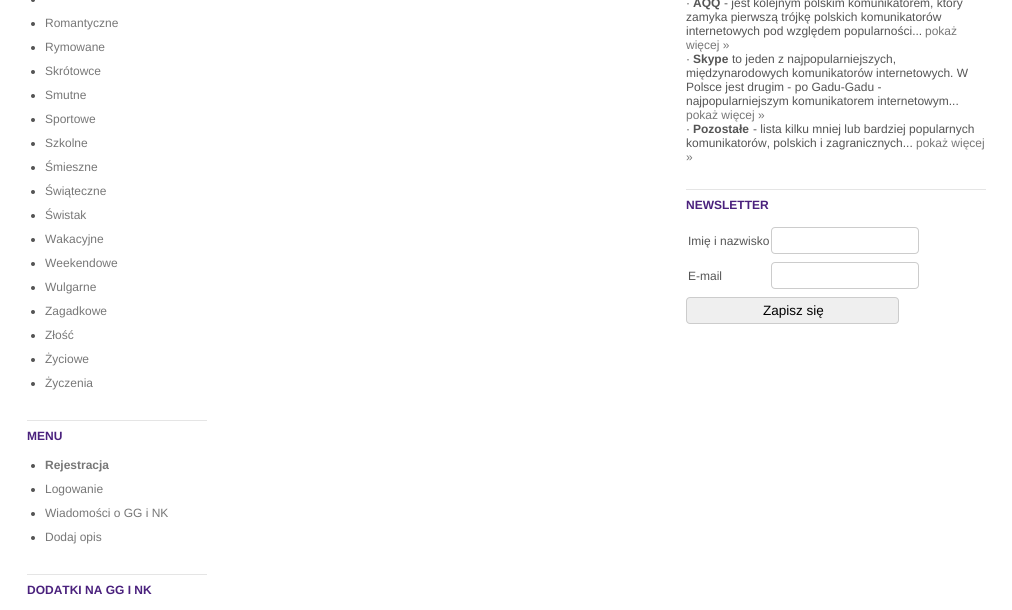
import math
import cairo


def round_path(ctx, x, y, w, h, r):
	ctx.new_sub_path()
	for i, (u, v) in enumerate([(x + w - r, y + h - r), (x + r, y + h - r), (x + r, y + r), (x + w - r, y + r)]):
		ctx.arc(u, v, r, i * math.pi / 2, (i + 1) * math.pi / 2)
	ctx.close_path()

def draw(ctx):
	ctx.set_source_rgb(1, 1, 1)
	ctx.paint()
	ctx.set_source_rgb(0.333, 0.333, 0.333)
	ctx.arc(33, 0, 2, 0, 2 * math.pi)
	ctx.fill()
	ctx.arc(33, 24, 2, 0, 2 * math.pi)
	ctx.fill()
	ctx.select_font_face('Liberation Sans')
	ctx.set_font_size(12)
	ctx.set_source_rgb(0.467, 0.467, 0.467)
	ctx.move_to(45, 27)
	ctx.show_text('Romantyczne')
	ctx.set_source_rgb(0.333, 0.333, 0.333)
	ctx.new_path()
	ctx.arc(33, 48, 2, 0, 2 * math.pi)
	ctx.fill()
	ctx.set_source_rgb(0.467, 0.467, 0.467)
	ctx.move_to(45, 51)
	ctx.show_text('Rymowane')
	ctx.set_source_rgb(0.333, 0.333, 0.333)
	ctx.new_path()
	ctx.arc(33, 72, 2, 0, 2 * math.pi)
	ctx.fill()
	ctx.set_source_rgb(0.467, 0.467, 0.467)
	ctx.move_to(45, 75)
	ctx.show_text('Skrótowce')
	ctx.set_source_rgb(0.333, 0.333, 0.333)
	ctx.new_path()
	ctx.arc(33, 96, 2, 0, 2 * math.pi)
	ctx.fill()
	ctx.set_source_rgb(0.467, 0.467, 0.467)
	ctx.move_to(45, 99)
	ctx.show_text('Smutne')
	ctx.set_source_rgb(0.333, 0.333, 0.333)
	ctx.new_path()
	ctx.arc(33, 120, 2, 0, 2 * math.pi)
	ctx.fill()
	ctx.set_source_rgb(0.467, 0.467, 0.467)
	ctx.move_to(45, 123)
	ctx.show_text('Sportowe')
	ctx.set_source_rgb(0.333, 0.333, 0.333)
	ctx.new_path()
	ctx.arc(33, 144, 2, 0, 2 * math.pi)
	ctx.fill()
	ctx.set_source_rgb(0.467, 0.467, 0.467)
	ctx.move_to(45, 147)
	ctx.show_text('Szkolne')
	ctx.set_source_rgb(0.333, 0.333, 0.333)
	ctx.new_path()
	ctx.arc(33, 168, 2, 0, 2 * math.pi)
	ctx.fill()
	ctx.set_source_rgb(0.467, 0.467, 0.467)
	ctx.move_to(45, 171)
	ctx.show_text('Śmieszne')
	ctx.set_source_rgb(0.333, 0.333, 0.333)
	ctx.new_path()
	ctx.arc(33, 192, 2, 0, 2 * math.pi)
	ctx.fill()
	ctx.set_source_rgb(0.467, 0.467, 0.467)
	ctx.move_to(45, 195)
	ctx.show_text('Świąteczne')
	ctx.set_source_rgb(0.333, 0.333, 0.333)
	ctx.new_path()
	ctx.arc(33, 216, 2, 0, 2 * math.pi)
	ctx.fill()
	ctx.set_source_rgb(0.467, 0.467, 0.467)
	ctx.move_to(45, 219)
	ctx.show_text('Świstak')
	ctx.set_source_rgb(0.333, 0.333, 0.333)
	ctx.new_path()
	ctx.arc(33, 240, 2, 0, 2 * math.pi)
	ctx.fill()
	ctx.set_source_rgb(0.467, 0.467, 0.467)
	ctx.move_to(45, 243)
	ctx.show_text('Wakacyjne')
	ctx.set_source_rgb(0.333, 0.333, 0.333)
	ctx.new_path()
	ctx.arc(33, 264, 2, 0, 2 * math.pi)
	ctx.fill()
	ctx.set_source_rgb(0.467, 0.467, 0.467)
	ctx.move_to(45, 267)
	ctx.show_text('Weekendowe')
	ctx.set_source_rgb(0.333, 0.333, 0.333)
	ctx.new_path()
	ctx.arc(33, 288, 2, 0, 2 * math.pi)
	ctx.fill()
	ctx.set_source_rgb(0.467, 0.467, 0.467)
	ctx.move_to(45, 291)
	ctx.show_text('Wulgarne')
	ctx.set_source_rgb(0.333, 0.333, 0.333)
	ctx.new_path()
	ctx.arc(33, 312, 2, 0, 2 * math.pi)
	ctx.fill()
	ctx.set_source_rgb(0.467, 0.467, 0.467)
	ctx.move_to(45, 315)
	ctx.show_text('Zagadkowe')
	ctx.set_source_rgb(0.333, 0.333, 0.333)
	ctx.new_path()
	ctx.arc(33, 336, 2, 0, 2 * math.pi)
	ctx.fill()
	ctx.set_source_rgb(0.467, 0.467, 0.467)
	ctx.move_to(45, 339)
	ctx.show_text('Złość')
	ctx.set_source_rgb(0.333, 0.333, 0.333)
	ctx.new_path()
	ctx.arc(33, 360, 2, 0, 2 * math.pi)
	ctx.fill()
	ctx.set_source_rgb(0.467, 0.467, 0.467)
	ctx.move_to(45, 363)
	ctx.show_text('Życiowe')
	ctx.set_source_rgb(0.333, 0.333, 0.333)
	ctx.new_path()
	ctx.arc(33, 384, 2, 0, 2 * math.pi)
	ctx.fill()
	ctx.set_source_rgb(0.467, 0.467, 0.467)
	ctx.move_to(45, 387)
	ctx.show_text('Życzenia')
	ctx.set_source_rgb(0.898, 0.898, 0.898)
	ctx.rectangle(27, 420, 180, 1)
	ctx.fill()
	ctx.select_font_face('Liberation Sans', cairo.FONT_SLANT_NORMAL, cairo.FONT_WEIGHT_BOLD)
	ctx.set_source_rgb(0.29, 0.129, 0.49)
	ctx.move_to(27, 440)
	ctx.show_text('MENU')
	ctx.set_source_rgb(0.333, 0.333, 0.333)
	ctx.new_path()
	ctx.arc(33, 466, 2, 0, 2 * math.pi)
	ctx.fill()
	ctx.set_source_rgb(0.467, 0.467, 0.467)
	ctx.move_to(45, 469)
	ctx.show_text('Rejestracja')
	ctx.set_source_rgb(0.333, 0.333, 0.333)
	ctx.new_path()
	ctx.arc(33, 490, 2, 0, 2 * math.pi)
	ctx.fill()
	ctx.select_font_face('Liberation Sans')
	ctx.set_source_rgb(0.467, 0.467, 0.467)
	ctx.move_to(45, 493)
	ctx.show_text('Logowanie')
	ctx.set_source_rgb(0.333, 0.333, 0.333)
	ctx.new_path()
	ctx.arc(33, 514, 2, 0, 2 * math.pi)
	ctx.fill()
	ctx.set_source_rgb(0.467, 0.467, 0.467)
	ctx.move_to(45, 517)
	ctx.show_text('Wiadomości o GG i NK')
	ctx.set_source_rgb(0.333, 0.333, 0.333)
	ctx.new_path()
	ctx.arc(33, 538, 2, 0, 2 * math.pi)
	ctx.fill()
	ctx.set_source_rgb(0.467, 0.467, 0.467)
	ctx.move_to(45, 541)
	ctx.show_text('Dodaj opis')
	ctx.set_source_rgb(0.898, 0.898, 0.898)
	ctx.rectangle(27, 574, 180, 1)
	ctx.fill()
	ctx.select_font_face('Liberation Sans', cairo.FONT_SLANT_NORMAL, cairo.FONT_WEIGHT_BOLD)
	ctx.set_source_rgb(0.29, 0.129, 0.49)
	ctx.move_to(27, 594)
	ctx.show_text('DODATKI NA GG I NK')
	ctx.select_font_face('Liberation Sans')
	ctx.set_source_rgb(0.333, 0.333, 0.333)
	ctx.move_to(686, 7)
	ctx.show_text('·')
	ctx.select_font_face('Liberation Sans', cairo.FONT_SLANT_NORMAL, cairo.FONT_WEIGHT_BOLD)
	ctx.move_to(693, 7)
	ctx.show_text('AQQ')
	ctx.select_font_face('Liberation Sans')
	for x, y, s in [
		(724, 7, '- jest kolejnym polskim komunikatorem, który'),
		(686, 21, 'zamyka pierwszą trójkę polskich komunikatorów'),
		(686, 35, 'internetowych pod względem popularności...'),
	]:
		ctx.move_to(x, y)
		ctx.show_text(s)
	ctx.set_source_rgb(0.467, 0.467, 0.467)
	ctx.move_to(925, 35)
	ctx.show_text('pokaż')
	ctx.move_to(686, 49)
	ctx.show_text('więcej »')
	ctx.set_source_rgb(0.333, 0.333, 0.333)
	ctx.move_to(686, 63)
	ctx.show_text('·')
	ctx.select_font_face('Liberation Sans', cairo.FONT_SLANT_NORMAL, cairo.FONT_WEIGHT_BOLD)
	ctx.move_to(693, 63)
	ctx.show_text('Skype')
	ctx.select_font_face('Liberation Sans')
	for x, y, s in [
		(732, 63, 'to jeden z najpopularniejszych,'),
		(686, 77, 'międzynarodowych komunikatorów internetowych. W'),
		(686, 91, 'Polsce jest drugim - po Gadu-Gadu -'),
		(686, 105, 'najpopularniejszym komunikatorem internetowym...'),
	]:
		ctx.move_to(x, y)
		ctx.show_text(s)
	ctx.set_source_rgb(0.467, 0.467, 0.467)
	ctx.move_to(686, 119)
	ctx.show_text('pokaż więcej »')
	ctx.set_source_rgb(0.333, 0.333, 0.333)
	ctx.move_to(686, 133)
	ctx.show_text('·')
	ctx.select_font_face('Liberation Sans', cairo.FONT_SLANT_NORMAL, cairo.FONT_WEIGHT_BOLD)
	ctx.move_to(693, 133)
	ctx.show_text('Pozostałe')
	ctx.select_font_face('Liberation Sans')
	ctx.move_to(753, 133)
	ctx.show_text('- lista kilku mniej lub bardziej popularnych')
	ctx.move_to(686, 147)
	ctx.show_text('komunikatorów, polskich i zagranicznych...')
	ctx.set_source_rgb(0.467, 0.467, 0.467)
	ctx.move_to(916, 147)
	ctx.show_text('pokaż więcej')
	ctx.move_to(686, 161)
	ctx.show_text('»')
	ctx.set_source_rgb(0.898, 0.898, 0.898)
	ctx.rectangle(686, 189, 300, 1)
	ctx.fill()
	ctx.select_font_face('Liberation Sans', cairo.FONT_SLANT_NORMAL, cairo.FONT_WEIGHT_BOLD)
	ctx.set_source_rgb(0.29, 0.129, 0.49)
	ctx.move_to(686, 209)
	ctx.show_text('NEWSLETTER')
	ctx.select_font_face('Liberation Sans')
	ctx.set_source_rgb(0.333, 0.333, 0.333)
	ctx.move_to(688, 245)
	ctx.show_text('Imię i nazwisko')
	round_path(ctx, 771.5, 227.5, 147, 26, 3.5)
	ctx.set_source_rgb(0.8, 0.8, 0.8)
	ctx.set_line_width(1)
	ctx.stroke()
	ctx.set_source_rgb(0.333, 0.333, 0.333)
	ctx.move_to(688, 280)
	ctx.show_text('E-mail')
	round_path(ctx, 771.5, 262.5, 147, 26, 3.5)
	ctx.set_source_rgb(0.8, 0.8, 0.8)
	ctx.stroke()
	ctx.set_source_rgb(0.937, 0.937, 0.937)
	round_path(ctx, 686.5, 297.5, 212, 26, 3.5)
	ctx.fill_preserve()
	ctx.set_source_rgb(0.8, 0.8, 0.8)
	ctx.stroke()
	ctx.set_font_size(13.5)
	ctx.set_source_rgb(0, 0, 0)
	ctx.move_to(763, 315)
	ctx.show_text('Zapisz się')


surface = cairo.ImageSurface(cairo.FORMAT_RGB24, 1012, 610)
ctx = cairo.Context(surface)
options = cairo.FontOptions()
options.set_hint_metrics(cairo.HINT_METRICS_OFF)
options.set_hint_style(cairo.HINT_STYLE_NONE)
ctx.set_font_options(options)
ctx.set_miter_limit(4)
draw(ctx)
surface.write_to_png('image.png')
